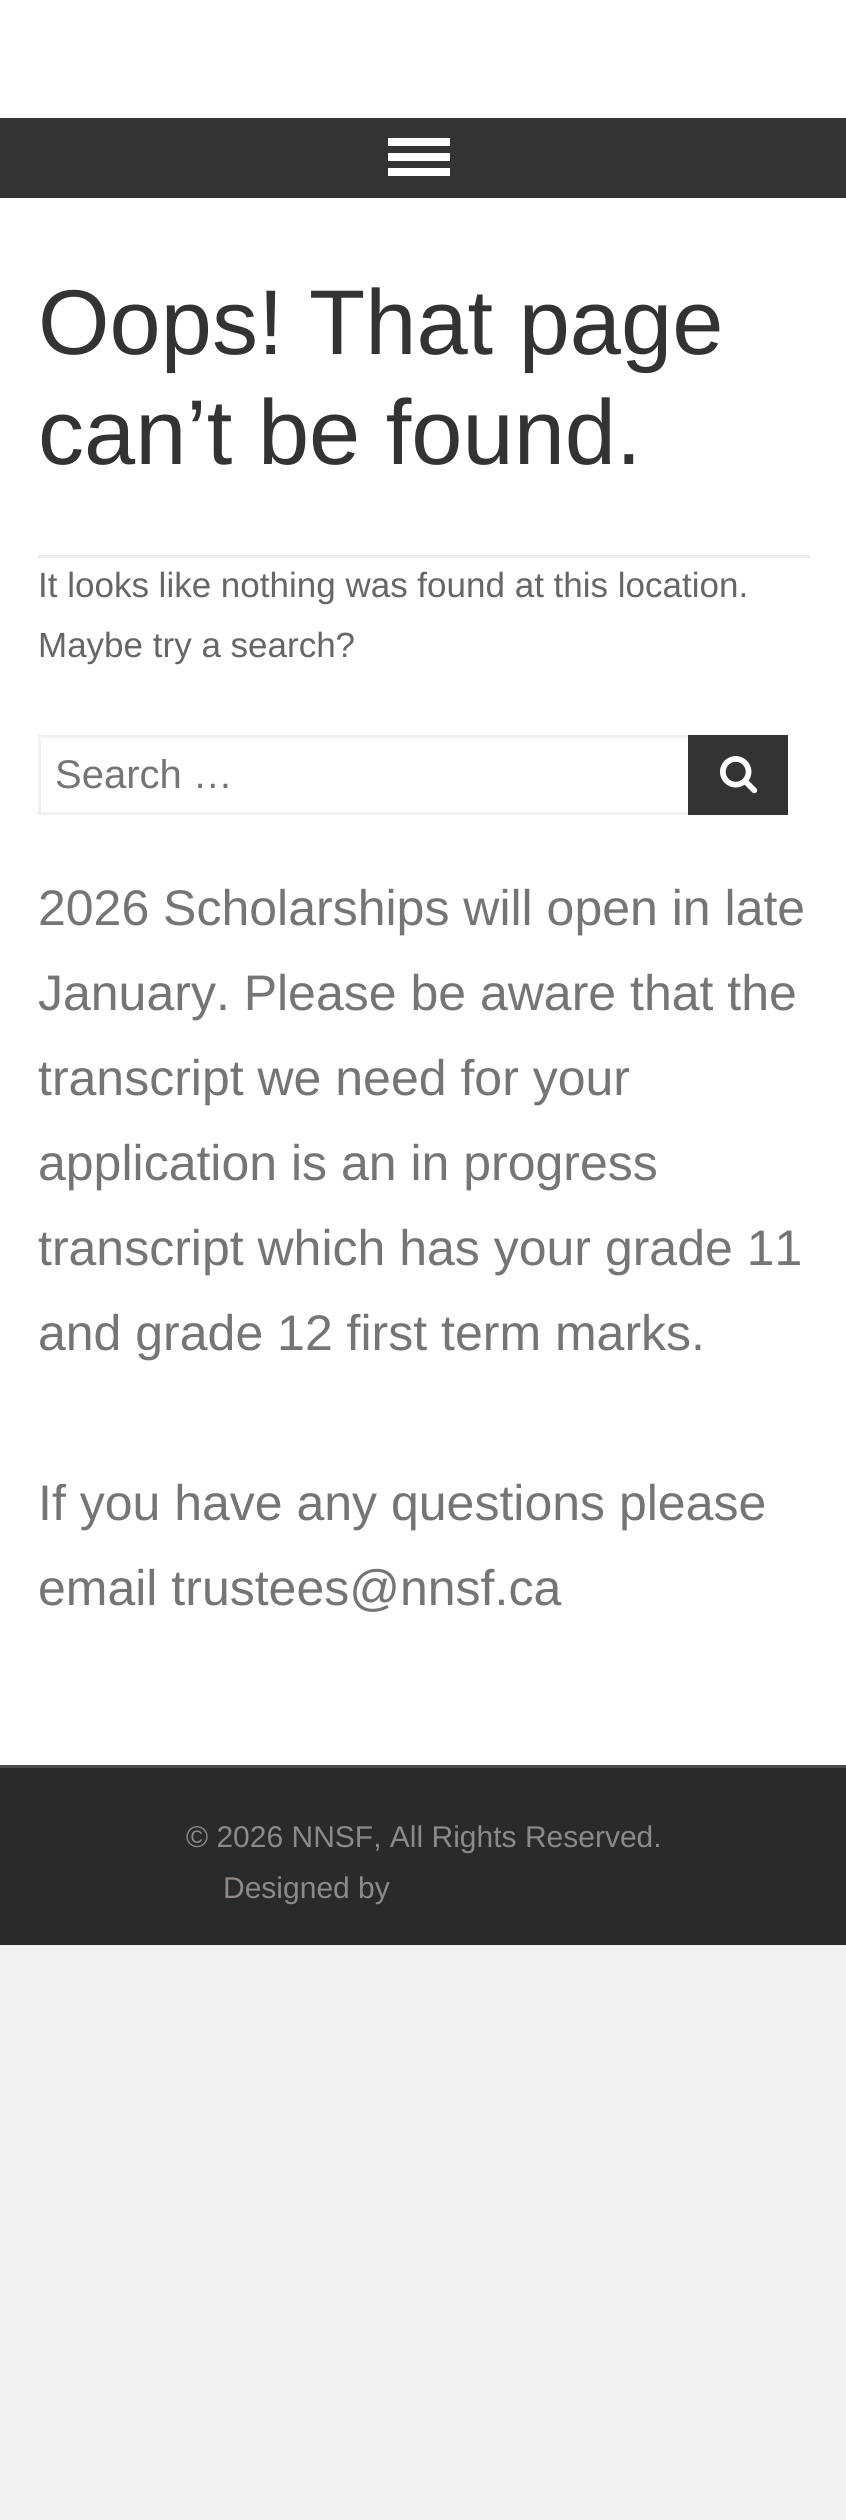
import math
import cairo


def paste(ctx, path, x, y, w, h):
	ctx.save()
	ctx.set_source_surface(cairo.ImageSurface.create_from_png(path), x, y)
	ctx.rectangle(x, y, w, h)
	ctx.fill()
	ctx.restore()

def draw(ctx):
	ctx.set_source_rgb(0.945, 0.945, 0.945)
	ctx.paint()
	ctx.set_source_rgb(1, 1, 1)
	ctx.rectangle(0, 0, 846, 1765)
	ctx.fill()
	ctx.set_source_rgb(0.2, 0.2, 0.2)
	ctx.rectangle(0, 118, 846, 80)
	ctx.fill()
	ctx.set_source_rgb(1, 1, 1)
	ctx.rectangle(388, 153, 62, 8)
	ctx.rectangle(388, 138, 62, 8)
	ctx.rectangle(388, 168, 62, 8)
	ctx.fill()
	ctx.set_source_rgb(0.922, 0.922, 0.922)
	ctx.rectangle(38, 555, 772, 3)
	ctx.fill()
	ctx.select_font_face('Liberation Sans')
	ctx.set_font_size(92)
	ctx.set_source_rgb(0.2, 0.2, 0.2)
	ctx.move_to(38, 354)
	ctx.show_text('Oops! That page')
	ctx.move_to(38, 464)
	ctx.show_text('can’t be found.')
	ctx.set_font_size(35)
	ctx.set_source_rgb(0.4, 0.4, 0.4)
	ctx.move_to(38, 597)
	ctx.show_text('It looks like nothing was found at this location.')
	ctx.move_to(38, 657)
	ctx.show_text('Maybe try a search?')
	ctx.rectangle(39.5, 736.5, 747, 77)
	ctx.set_source_rgb(0.945, 0.945, 0.945)
	ctx.set_line_width(3)
	ctx.stroke()
	ctx.set_font_size(40)
	ctx.set_source_rgb(0.459, 0.459, 0.459)
	ctx.move_to(55, 788)
	ctx.show_text('Search …')
	ctx.set_source_rgb(0.2, 0.2, 0.2)
	ctx.rectangle(688, 735, 100, 80)
	ctx.fill()
	paste(ctx, 'media/1.png', 720, 756, 38, 38)
	ctx.set_font_size(50)
	ctx.set_source_rgb(0.459, 0.459, 0.459)
	for x, y, s in [
		(38, 925, '2026 Scholarships will open in late'),
		(38, 1010, 'January. Please be aware that the'),
		(38, 1095, 'transcript we need for your'),
		(38, 1180, 'application is an in progress'),
		(38, 1265, 'transcript which has your grade 11'),
		(38, 1350, 'and grade 12 first term marks.'),
		(38, 1520, 'If you have any questions please'),
		(38, 1605, 'email trustees@nnsf.ca'),
	]:
		ctx.move_to(x, y)
		ctx.show_text(s)
	ctx.set_source_rgb(0.157, 0.165, 0.169)
	ctx.rectangle(0, 1768, 846, 177)
	ctx.fill()
	ctx.set_source_rgb(0.294, 0.298, 0.302)
	ctx.rectangle(0, 1765, 846, 3)
	ctx.fill()
	ctx.set_font_size(30)
	ctx.set_source_rgb(0.549, 0.537, 0.533)
	ctx.move_to(186, 1847)
	ctx.show_text('© 2026 NNSF, All Rights Reserved.')
	ctx.move_to(223, 1898)
	ctx.show_text('Designed by')


surface = cairo.ImageSurface(cairo.FORMAT_RGB24, 846, 2520)
ctx = cairo.Context(surface)
options = cairo.FontOptions()
options.set_hint_metrics(cairo.HINT_METRICS_OFF)
options.set_hint_style(cairo.HINT_STYLE_NONE)
ctx.set_font_options(options)
ctx.set_miter_limit(4)
draw(ctx)
surface.write_to_png('image.png')
